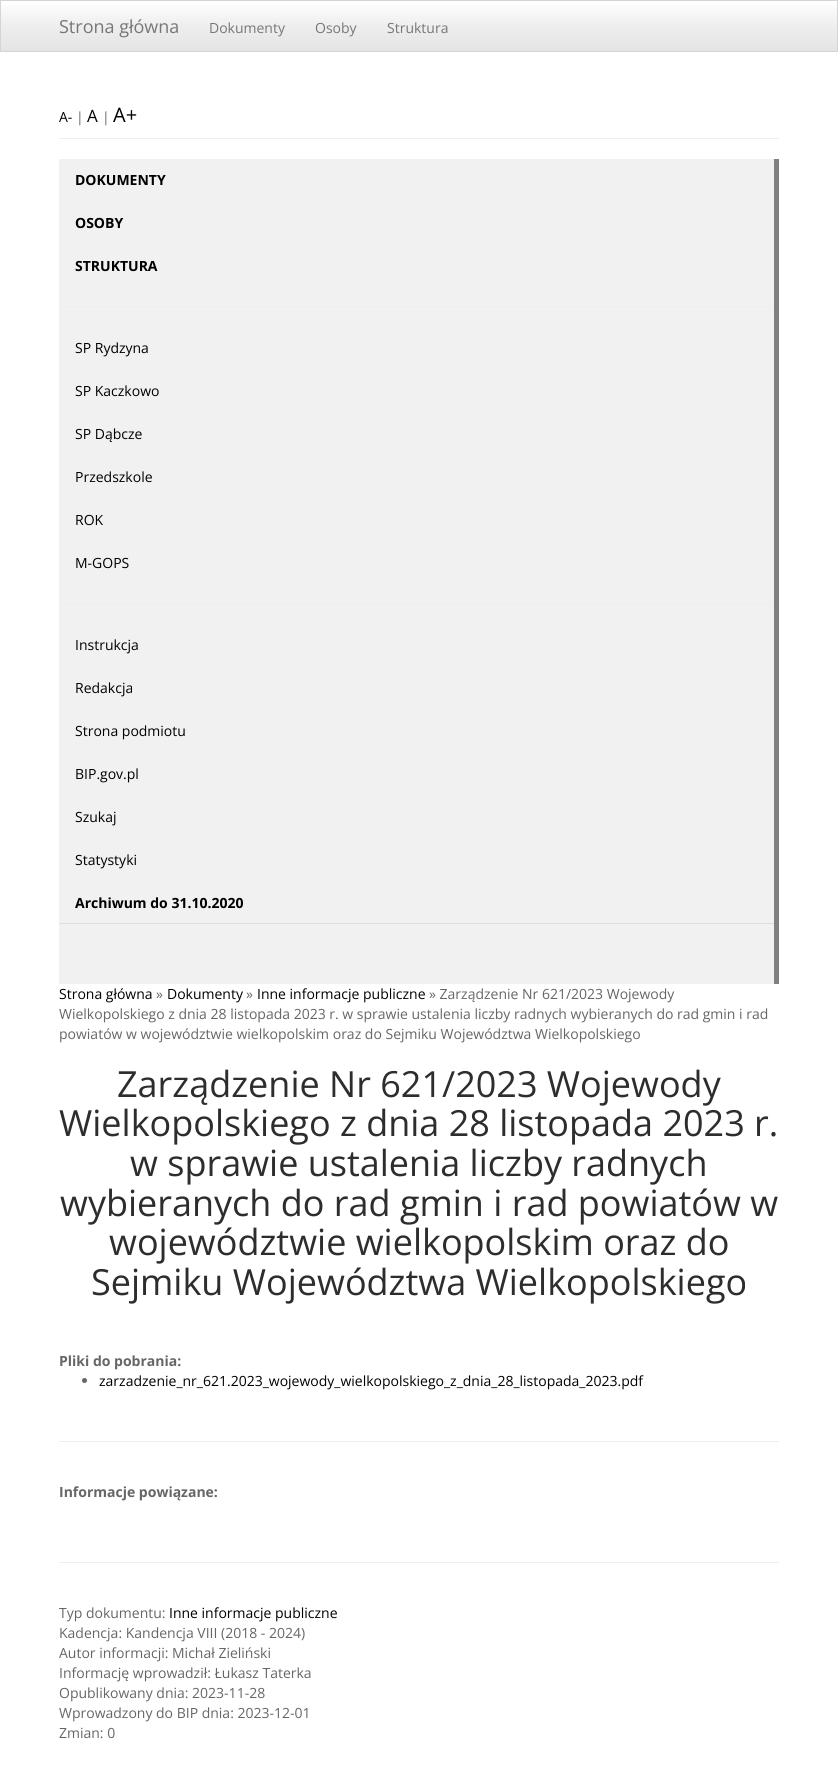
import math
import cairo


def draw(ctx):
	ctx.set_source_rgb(1, 1, 1)
	ctx.paint()
	gradient = cairo.LinearGradient(419, 1, 419, 51)
	gradient.add_color_stop_rgba(0, 1, 1, 1, 1)
	gradient.add_color_stop_rgba(0.5, 0.933, 0.933, 0.933, 1)
	gradient.add_color_stop_rgba(1, 0.894, 0.894, 0.894, 1)
	ctx.set_source(gradient)
	ctx.rectangle(1, 5, 836, 46)
	ctx.fill()
	ctx.rectangle(0.5, 0.5, 837, 51)
	ctx.set_source_rgb(0.835, 0.835, 0.835)
	ctx.set_line_width(1)
	ctx.stroke()
	ctx.select_font_face('Open Sans')
	ctx.set_font_size(18)
	ctx.set_source_rgb(0.467, 0.467, 0.467)
	ctx.move_to(59, 33)
	ctx.show_text('Strona główna')
	ctx.set_font_size(14)
	for x, y, s in [
		(209, 33, 'Dokumenty'),
		(315, 33, 'Osoby'),
		(387, 33, 'Struktura'),
	]:
		ctx.move_to(x, y)
		ctx.show_text(s)
	ctx.set_source_rgb(0.933, 0.933, 0.933)
	ctx.rectangle(59, 138, 720, 1)
	ctx.fill()
	ctx.set_source_rgb(0, 0, 0)
	ctx.move_to(59, 122)
	ctx.show_text('A-')
	ctx.set_source_rgb(0.4, 0.4, 0.4)
	ctx.move_to(76, 122)
	ctx.show_text('|')
	ctx.set_font_size(17)
	ctx.set_source_rgb(0, 0, 0)
	ctx.move_to(87, 122)
	ctx.show_text('A')
	ctx.set_font_size(14)
	ctx.set_source_rgb(0.4, 0.4, 0.4)
	ctx.move_to(102, 122)
	ctx.show_text('|')
	ctx.set_font_size(20)
	ctx.set_source_rgb(0, 0, 0)
	ctx.move_to(113, 122)
	ctx.show_text('A+')
	ctx.set_source_rgb(0.945, 0.945, 0.945)
	ctx.rectangle(59, 159, 715, 825)
	ctx.fill()
	ctx.set_source_rgb(0.502, 0.502, 0.502)
	ctx.rectangle(774, 159, 5, 825)
	ctx.fill()
	ctx.set_source_rgb(0.867, 0.867, 0.867)
	ctx.rectangle(59, 923, 715, 1)
	ctx.fill()
	ctx.select_font_face('Open Sans', cairo.FONT_SLANT_NORMAL, cairo.FONT_WEIGHT_BOLD)
	ctx.set_font_size(14)
	ctx.set_source_rgb(0, 0, 0)
	for x, y, s in [
		(75, 185, 'DOKUMENTY'),
		(75, 228, 'OSOBY'),
		(75, 271, 'STRUKTURA'),
	]:
		ctx.move_to(x, y)
		ctx.show_text(s)
	ctx.set_source_rgb(0.933, 0.933, 0.933)
	ctx.rectangle(59, 306, 715, 1)
	ctx.fill()
	ctx.select_font_face('Open Sans')
	ctx.set_source_rgb(0, 0, 0)
	for x, y, s in [
		(75, 353, 'SP Rydzyna'),
		(75, 396, 'SP Kaczkowo'),
		(75, 439, 'SP Dąbcze'),
		(75, 482, 'Przedszkole'),
		(75, 525, 'ROK'),
		(75, 568, 'M-GOPS'),
	]:
		ctx.move_to(x, y)
		ctx.show_text(s)
	ctx.set_source_rgb(0.933, 0.933, 0.933)
	ctx.rectangle(59, 603, 715, 1)
	ctx.fill()
	ctx.set_source_rgb(0, 0, 0)
	for x, y, s in [
		(75, 650, 'Instrukcja'),
		(75, 693, 'Redakcja'),
		(75, 736, 'Strona podmiotu'),
		(75, 779, 'BIP.gov.pl'),
		(75, 822, 'Szukaj'),
		(75, 865, 'Statystyki'),
	]:
		ctx.move_to(x, y)
		ctx.show_text(s)
	ctx.select_font_face('Open Sans', cairo.FONT_SLANT_NORMAL, cairo.FONT_WEIGHT_BOLD)
	ctx.move_to(75, 908)
	ctx.show_text('Archiwum do 31.10.2020')
	ctx.select_font_face('Open Sans')
	ctx.move_to(59, 999)
	ctx.show_text('Strona główna')
	ctx.set_source_rgb(0.4, 0.4, 0.4)
	ctx.move_to(156, 999)
	ctx.show_text('»')
	ctx.set_source_rgb(0, 0, 0)
	ctx.move_to(167, 999)
	ctx.show_text('Dokumenty')
	ctx.set_source_rgb(0.4, 0.4, 0.4)
	ctx.move_to(246, 999)
	ctx.show_text('»')
	ctx.set_source_rgb(0, 0, 0)
	ctx.move_to(257, 999)
	ctx.show_text('Inne informacje publiczne')
	ctx.set_source_rgb(0.4, 0.4, 0.4)
	for x, y, s in [
		(429, 999, '» Zarządzenie Nr 621/2023 Wojewody'),
		(59, 1019, 'Wielkopolskiego z dnia 28 listopada 2023 r. w sprawie ustalenia liczby radnych wybieranych do rad gmin i rad'),
		(59, 1039, 'powiatów w województwie wielkopolskim oraz do Sejmiku Województwa Wielkopolskiego'),
	]:
		ctx.move_to(x, y)
		ctx.show_text(s)
	ctx.set_font_size(36)
	ctx.set_source_rgb(0.176, 0.176, 0.176)
	for x, y, s in [
		(117, 1097, 'Zarządzenie Nr 621/2023 Wojewody'),
		(59, 1136, 'Wielkopolskiego z dnia 28 listopada 2023 r.'),
		(130, 1176, 'w sprawie ustalenia liczby radnych'),
		(60, 1216, 'wybieranych do rad gmin i rad powiatów w'),
		(109, 1255, 'województwie wielkopolskim oraz do'),
		(91, 1295, 'Sejmiku Województwa Wielkopolskiego'),
	]:
		ctx.move_to(x, y)
		ctx.show_text(s)
	ctx.select_font_face('Open Sans', cairo.FONT_SLANT_NORMAL, cairo.FONT_WEIGHT_BOLD)
	ctx.set_font_size(14)
	ctx.set_source_rgb(0.4, 0.4, 0.4)
	ctx.move_to(59, 1366)
	ctx.show_text('Pliki do pobrania:')
	ctx.new_path()
	ctx.arc(84.5, 1380.5, 2.5, 0, 2 * math.pi)
	ctx.fill()
	ctx.select_font_face('Open Sans')
	ctx.set_source_rgb(0, 0, 0)
	ctx.move_to(99, 1386)
	ctx.show_text('zarzadzenie_nr_621.2023_wojewody_wielkopolskiego_z_dnia_28_listopada_2023.pdf')
	ctx.set_source_rgb(0.933, 0.933, 0.933)
	ctx.rectangle(59, 1441, 720, 1)
	ctx.fill()
	ctx.select_font_face('Open Sans', cairo.FONT_SLANT_NORMAL, cairo.FONT_WEIGHT_BOLD)
	ctx.set_source_rgb(0.4, 0.4, 0.4)
	ctx.move_to(59, 1497)
	ctx.show_text('Informacje powiązane:')
	ctx.set_source_rgb(0.933, 0.933, 0.933)
	ctx.rectangle(59, 1562, 720, 1)
	ctx.fill()
	ctx.select_font_face('Open Sans')
	ctx.set_source_rgb(0.4, 0.4, 0.4)
	ctx.move_to(59, 1618)
	ctx.show_text('Typ dokumentu:')
	ctx.set_source_rgb(0, 0, 0)
	ctx.move_to(169, 1618)
	ctx.show_text('Inne informacje publiczne')
	ctx.set_source_rgb(0.4, 0.4, 0.4)
	for x, y, s in [
		(59, 1638, 'Kadencja: Kandencja VIII (2018 - 2024)'),
		(59, 1658, 'Autor informacji: Michał Zieliński'),
		(59, 1678, 'Informację wprowadził: Łukasz Taterka'),
		(59, 1698, 'Opublikowany dnia: 2023-11-28'),
		(59, 1718, 'Wprowadzony do BIP dnia: 2023-12-01'),
		(59, 1738, 'Zmian: 0'),
	]:
		ctx.move_to(x, y)
		ctx.show_text(s)


surface = cairo.ImageSurface(cairo.FORMAT_RGB24, 838, 1768)
ctx = cairo.Context(surface)
options = cairo.FontOptions()
options.set_hint_metrics(cairo.HINT_METRICS_OFF)
options.set_hint_style(cairo.HINT_STYLE_NONE)
ctx.set_font_options(options)
ctx.set_miter_limit(4)
draw(ctx)
surface.write_to_png('image.png')
